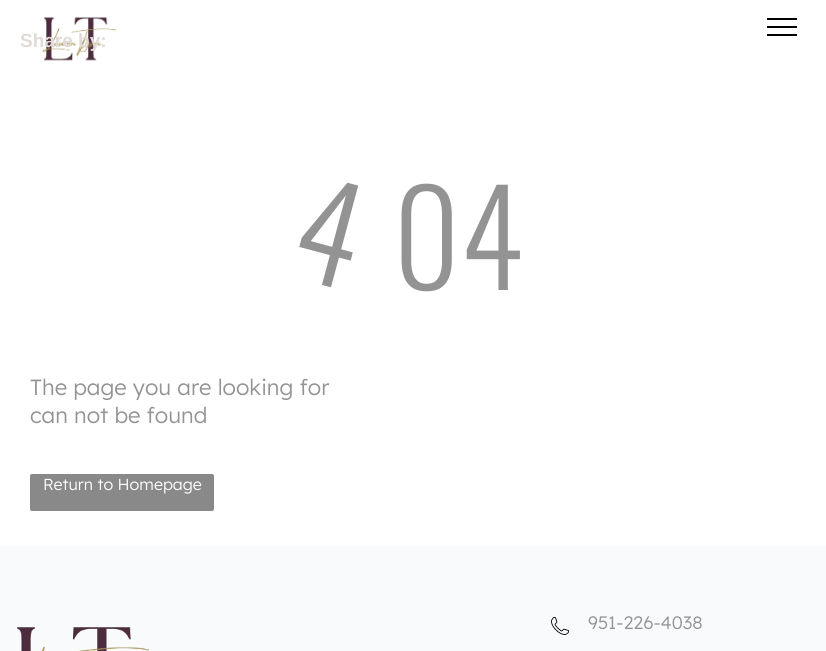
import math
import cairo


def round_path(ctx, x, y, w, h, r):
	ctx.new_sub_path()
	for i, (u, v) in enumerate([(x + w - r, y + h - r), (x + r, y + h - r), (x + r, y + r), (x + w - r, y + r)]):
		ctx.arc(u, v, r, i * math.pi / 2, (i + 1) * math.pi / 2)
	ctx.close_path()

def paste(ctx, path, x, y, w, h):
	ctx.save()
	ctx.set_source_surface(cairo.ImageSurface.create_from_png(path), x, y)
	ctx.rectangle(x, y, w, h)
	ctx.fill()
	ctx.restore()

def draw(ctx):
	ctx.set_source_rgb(1, 1, 1)
	ctx.paint()
	paste(ctx, 'media/1.png', 42, 17, 76, 44)
	ctx.select_font_face('Liberation Sans', cairo.FONT_SLANT_NORMAL, cairo.FONT_WEIGHT_BOLD)
	ctx.set_font_size(19)
	ctx.set_source_rgb(0.882, 0.859, 0.847)
	ctx.move_to(20, 47)
	ctx.show_text('Share by:')
	ctx.set_source_rgb(0, 0, 0)
	ctx.rectangle(767, 18, 30, 2)
	ctx.rectangle(767, 26, 30, 2)
	ctx.rectangle(767, 34, 30, 2)
	ctx.fill()
	ctx.select_font_face('Oswald Light')
	ctx.set_font_size(130)
	ctx.set_source_rgb(0.576, 0.576, 0.576)
	ctx.save()
	ctx.translate(285, 275)
	ctx.rotate(15 * math.pi / 180)
	ctx.move_to(0, 0)
	ctx.show_text('4')
	ctx.restore()
	ctx.move_to(393, 290)
	ctx.show_text('04')
	ctx.select_font_face('Lexend Deca Light')
	ctx.set_font_size(22)
	ctx.move_to(30, 395)
	ctx.show_text('The page you are looking for')
	ctx.move_to(30, 423)
	ctx.show_text('can not be found')
	ctx.set_source_rgb(0.537, 0.537, 0.537)
	round_path(ctx, 30, 474, 184, 37, 2)
	ctx.fill()
	ctx.set_font_size(16)
	ctx.set_source_rgb(1, 1, 1)
	ctx.move_to(43, 490)
	ctx.show_text('Return to Homepage')
	ctx.set_source_rgb(0.976, 0.98, 0.984)
	ctx.rectangle(0, 546, 826, 105)
	ctx.fill()
	paste(ctx, 'media/2.png', 551, 617, 18, 18)
	ctx.set_font_size(18)
	ctx.set_source_rgb(0.576, 0.576, 0.576)
	ctx.move_to(588, 629)
	ctx.show_text('951-226-4038')
	paste(ctx, 'media/3.png', 17, 627, 132, 24)


surface = cairo.ImageSurface(cairo.FORMAT_RGB24, 826, 651)
ctx = cairo.Context(surface)
options = cairo.FontOptions()
options.set_hint_metrics(cairo.HINT_METRICS_OFF)
options.set_hint_style(cairo.HINT_STYLE_NONE)
ctx.set_font_options(options)
ctx.set_miter_limit(4)
draw(ctx)
surface.write_to_png('image.png')
